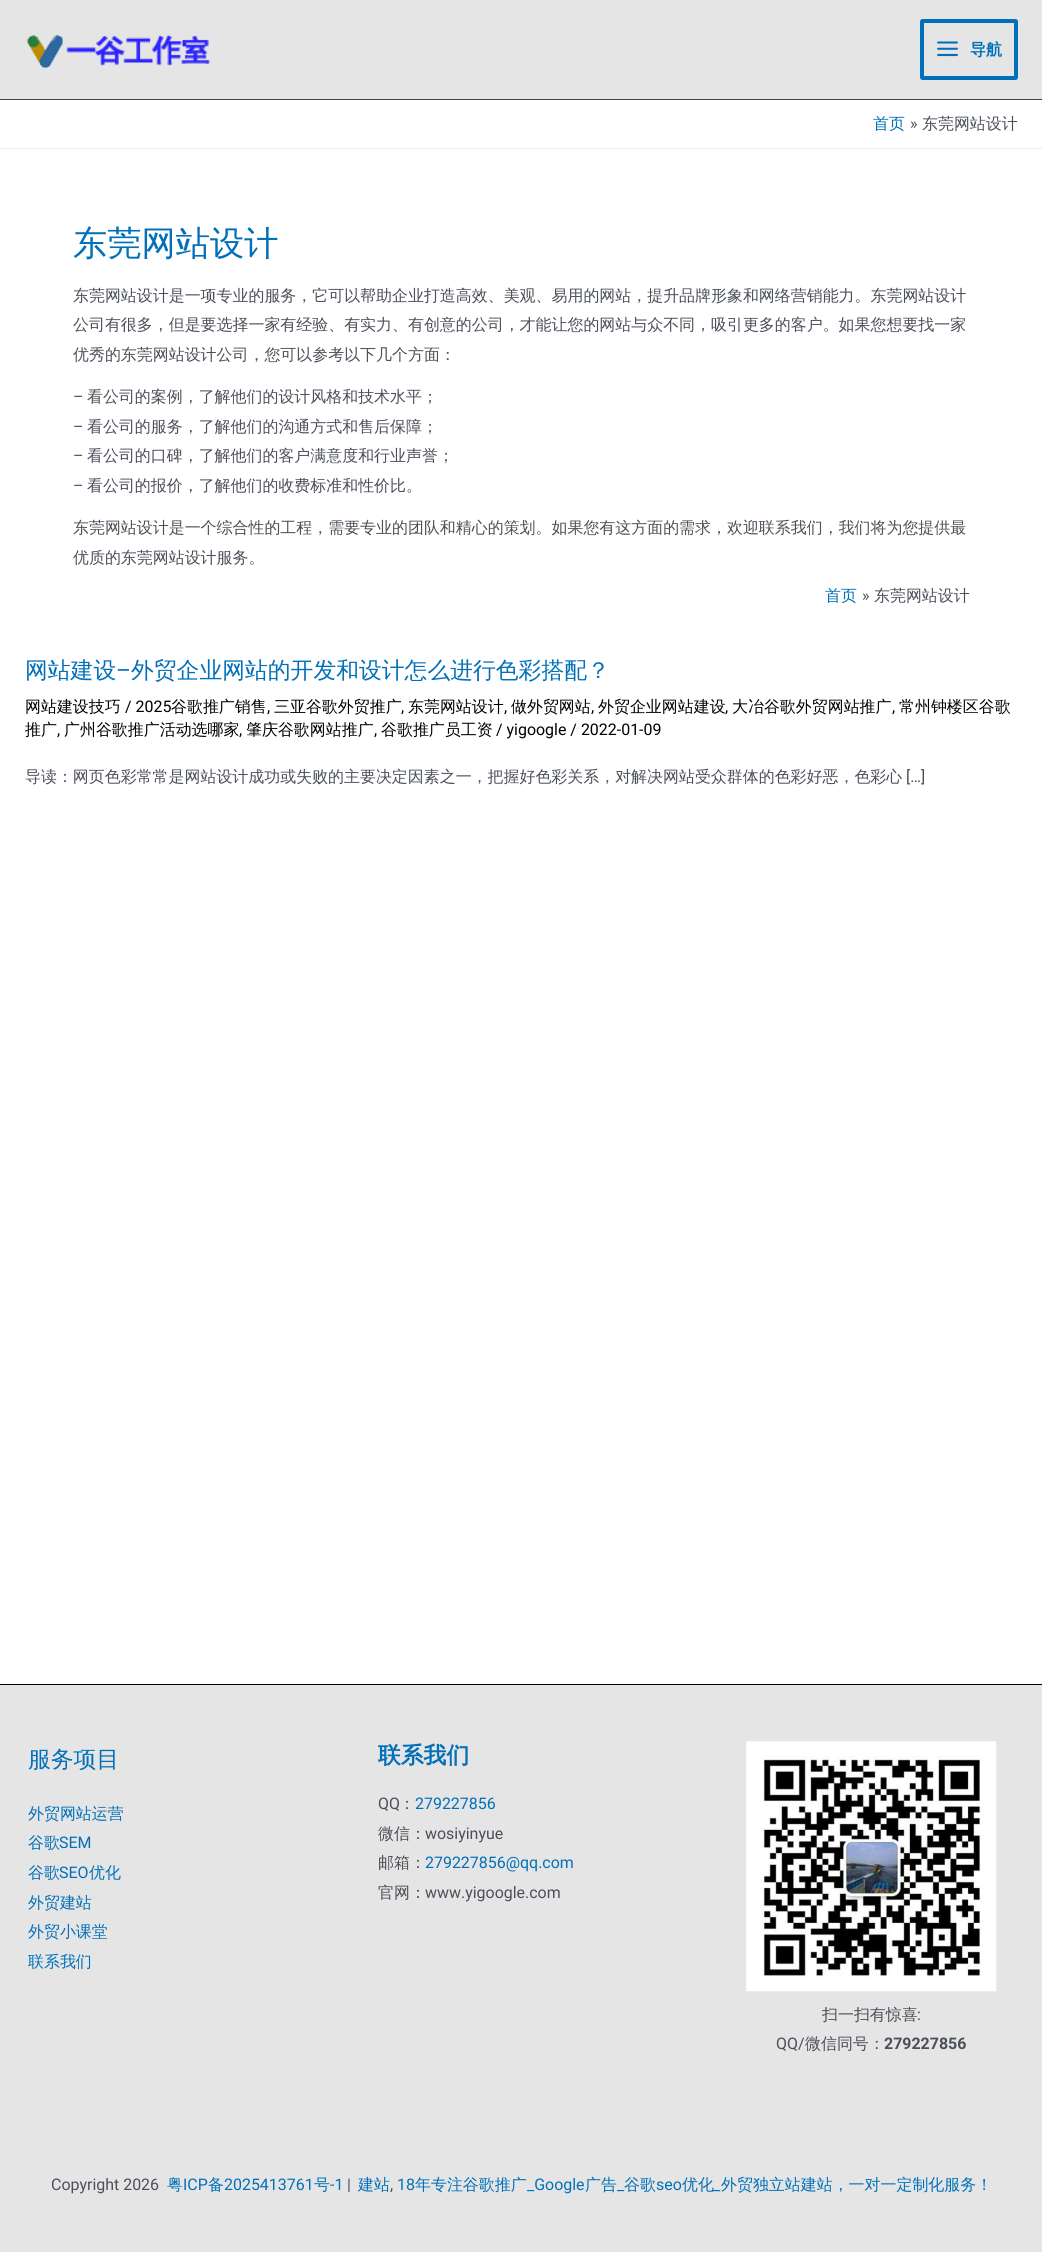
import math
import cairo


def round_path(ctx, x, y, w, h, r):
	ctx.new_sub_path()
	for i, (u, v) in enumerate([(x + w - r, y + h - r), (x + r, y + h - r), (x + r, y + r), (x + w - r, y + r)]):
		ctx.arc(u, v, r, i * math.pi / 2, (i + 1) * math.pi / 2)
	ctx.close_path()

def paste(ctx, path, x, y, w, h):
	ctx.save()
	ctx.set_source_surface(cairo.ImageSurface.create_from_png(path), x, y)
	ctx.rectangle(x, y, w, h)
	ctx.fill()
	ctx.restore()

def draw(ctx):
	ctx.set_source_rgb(1, 1, 1)
	ctx.paint()
	ctx.set_source_rgb(0.898, 0.898, 0.898)
	ctx.rectangle(0, 0, 1042, 99)
	ctx.fill()
	ctx.set_source_rgb(0.259, 0.259, 0.259)
	ctx.rectangle(0, 99, 1042, 1)
	ctx.fill()
	paste(ctx, 'media/1.png', 27, 34, 184, 34)
	round_path(ctx, 922, 21, 94, 57, 0.5)
	ctx.set_source_rgb(0.004, 0.439, 0.725)
	ctx.set_line_width(4)
	ctx.stroke()
	paste(ctx, 'media/2.png', 937, 41, 21, 16)
	ctx.select_font_face('WenQuanYi Zen Hei', cairo.FONT_SLANT_NORMAL, cairo.FONT_WEIGHT_BOLD)
	ctx.set_font_size(15.95)
	ctx.move_to(970, 55)
	ctx.show_text('导航')
	ctx.set_source_rgb(0.918, 0.918, 0.918)
	ctx.rectangle(0, 148, 1042, 1)
	ctx.fill()
	ctx.select_font_face('WenQuanYi Zen Hei Medium')
	ctx.set_source_rgb(0.004, 0.439, 0.725)
	ctx.move_to(873, 129)
	ctx.show_text('首页')
	ctx.select_font_face('Roboto')
	ctx.set_source_rgb(0.294, 0.31, 0.345)
	ctx.move_to(910, 129)
	ctx.show_text('»')
	ctx.select_font_face('WenQuanYi Zen Hei Medium')
	ctx.move_to(922, 129)
	ctx.show_text('东莞网站设计')
	ctx.set_font_size(34.25)
	ctx.set_source_rgb(0.004, 0.439, 0.725)
	ctx.move_to(73, 255)
	ctx.show_text('东莞网站设计')
	ctx.set_font_size(15.95)
	ctx.set_source_rgb(0.294, 0.31, 0.345)
	for x, y, s in [
		(73, 301, '东莞网站设计是一项专业的服务，它可以帮助企业打造高效、美观、易用的网站，提升品牌形象和网络营销能力。东莞网站设计'),
		(73, 330, '公司有很多，但是要选择一家有经验、有实力、有创意的公司，才能让您的网站与众不同，吸引更多的客户。如果您想要找一家'),
		(73, 360, '优秀的东莞网站设计公司，您可以参考以下几个方面：'),
	]:
		ctx.move_to(x, y)
		ctx.show_text(s)
	ctx.select_font_face('Roboto')
	ctx.move_to(73, 402)
	ctx.show_text('–')
	ctx.select_font_face('WenQuanYi Zen Hei Medium')
	ctx.move_to(87, 402)
	ctx.show_text('看公司的案例，了解他们的设计风格和技术水平；')
	ctx.select_font_face('Roboto')
	ctx.move_to(73, 432)
	ctx.show_text('–')
	ctx.select_font_face('WenQuanYi Zen Hei Medium')
	ctx.move_to(87, 432)
	ctx.show_text('看公司的服务，了解他们的沟通方式和售后保障；')
	ctx.select_font_face('Roboto')
	ctx.move_to(73, 461)
	ctx.show_text('–')
	ctx.select_font_face('WenQuanYi Zen Hei Medium')
	ctx.move_to(87, 461)
	ctx.show_text('看公司的口碑，了解他们的客户满意度和行业声誉；')
	ctx.select_font_face('Roboto')
	ctx.move_to(73, 491)
	ctx.show_text('–')
	ctx.select_font_face('WenQuanYi Zen Hei Medium')
	for x, y, s in [
		(87, 491, '看公司的报价，了解他们的收费标准和性价比。'),
		(73, 533, '东莞网站设计是一个综合性的工程，需要专业的团队和精心的策划。如果您有这方面的需求，欢迎联系我们，我们将为您提供最'),
		(73, 563, '优质的东莞网站设计服务。'),
	]:
		ctx.move_to(x, y)
		ctx.show_text(s)
	ctx.set_source_rgb(0.004, 0.439, 0.725)
	ctx.move_to(825, 601)
	ctx.show_text('首页')
	ctx.select_font_face('Roboto')
	ctx.set_source_rgb(0.294, 0.31, 0.345)
	ctx.move_to(862, 601)
	ctx.show_text('»')
	ctx.select_font_face('WenQuanYi Zen Hei Medium')
	ctx.move_to(874, 601)
	ctx.show_text('东莞网站设计')
	ctx.set_font_size(22.8)
	ctx.set_source_rgb(0.004, 0.439, 0.725)
	ctx.move_to(25, 678)
	ctx.show_text('网站建设')
	ctx.select_font_face('Roboto')
	ctx.move_to(116, 678)
	ctx.show_text('–')
	ctx.select_font_face('WenQuanYi Zen Hei Medium')
	ctx.move_to(131, 678)
	ctx.show_text('外贸企业网站的开发和设计怎么进行色彩搭配？')
	ctx.set_font_size(15.95)
	ctx.set_source_rgb(0, 0, 0)
	ctx.move_to(25, 712)
	ctx.show_text('网站建设技巧')
	ctx.select_font_face('Roboto')
	ctx.move_to(125, 712)
	ctx.show_text('/ 2025')
	ctx.select_font_face('WenQuanYi Zen Hei Medium')
	ctx.move_to(171, 712)
	ctx.show_text('谷歌推广销售')
	ctx.select_font_face('Roboto')
	ctx.move_to(267, 712)
	ctx.show_text(',')
	ctx.select_font_face('WenQuanYi Zen Hei Medium')
	ctx.move_to(274, 712)
	ctx.show_text('三亚谷歌外贸推广')
	ctx.select_font_face('Roboto')
	ctx.move_to(401, 712)
	ctx.show_text(',')
	ctx.select_font_face('WenQuanYi Zen Hei Medium')
	ctx.move_to(408, 712)
	ctx.show_text('东莞网站设计')
	ctx.select_font_face('Roboto')
	ctx.move_to(504, 712)
	ctx.show_text(',')
	ctx.select_font_face('WenQuanYi Zen Hei Medium')
	ctx.move_to(511, 712)
	ctx.show_text('做外贸网站')
	ctx.select_font_face('Roboto')
	ctx.move_to(591, 712)
	ctx.show_text(',')
	ctx.select_font_face('WenQuanYi Zen Hei Medium')
	ctx.move_to(598, 712)
	ctx.show_text('外贸企业网站建设')
	ctx.select_font_face('Roboto')
	ctx.move_to(725, 712)
	ctx.show_text(',')
	ctx.select_font_face('WenQuanYi Zen Hei Medium')
	ctx.move_to(732, 712)
	ctx.show_text('大冶谷歌外贸网站推广')
	ctx.select_font_face('Roboto')
	ctx.move_to(892, 712)
	ctx.show_text(',')
	ctx.select_font_face('WenQuanYi Zen Hei Medium')
	ctx.move_to(899, 712)
	ctx.show_text('常州钟楼区谷歌')
	ctx.move_to(25, 735)
	ctx.show_text('推广')
	ctx.select_font_face('Roboto')
	ctx.move_to(57, 735)
	ctx.show_text(',')
	ctx.select_font_face('WenQuanYi Zen Hei Medium')
	ctx.move_to(64, 735)
	ctx.show_text('广州谷歌推广活动选哪家')
	ctx.select_font_face('Roboto')
	ctx.move_to(239, 735)
	ctx.show_text(',')
	ctx.select_font_face('WenQuanYi Zen Hei Medium')
	ctx.move_to(246, 735)
	ctx.show_text('肇庆谷歌网站推广')
	ctx.select_font_face('Roboto')
	ctx.move_to(374, 735)
	ctx.show_text(',')
	ctx.select_font_face('WenQuanYi Zen Hei Medium')
	ctx.move_to(381, 735)
	ctx.show_text('谷歌推广员工资')
	ctx.select_font_face('Roboto')
	ctx.move_to(496, 735)
	ctx.show_text('/ yigoogle / 2022-01-09')
	ctx.select_font_face('WenQuanYi Zen Hei Medium')
	ctx.set_source_rgb(0.294, 0.31, 0.345)
	ctx.move_to(25, 782)
	ctx.show_text('导读：网页色彩常常是网站设计成功或失败的主要决定因素之一，把握好色彩关系，对解决网站受众群体的色彩好恶，色彩心')
	ctx.select_font_face('Roboto')
	ctx.move_to(906, 782)
	ctx.show_text('[…]')
	ctx.set_source_rgb(0.898, 0.898, 0.898)
	ctx.rectangle(0, 1685, 1042, 459)
	ctx.fill()
	ctx.set_source_rgb(0, 0, 0)
	ctx.rectangle(0, 1684, 1042, 1)
	ctx.fill()
	ctx.select_font_face('WenQuanYi Zen Hei Medium')
	ctx.set_font_size(22.8)
	ctx.set_source_rgb(0.004, 0.439, 0.725)
	ctx.move_to(28, 1767)
	ctx.show_text('服务项目')
	ctx.set_font_size(15.95)
	ctx.move_to(28, 1819)
	ctx.show_text('外贸网站运营')
	ctx.move_to(28, 1848)
	ctx.show_text('谷歌')
	ctx.select_font_face('Roboto')
	ctx.move_to(59, 1848)
	ctx.show_text('SEM')
	ctx.select_font_face('WenQuanYi Zen Hei Medium')
	ctx.move_to(28, 1878)
	ctx.show_text('谷歌')
	ctx.select_font_face('Roboto')
	ctx.move_to(59, 1878)
	ctx.show_text('SEO')
	ctx.select_font_face('WenQuanYi Zen Hei Medium')
	for x, y, s in [
		(89, 1878, '优化'),
		(28, 1908, '外贸建站'),
		(28, 1937, '外贸小课堂'),
		(28, 1967, '联系我们'),
	]:
		ctx.move_to(x, y)
		ctx.show_text(s)
	ctx.select_font_face('WenQuanYi Zen Hei', cairo.FONT_SLANT_NORMAL, cairo.FONT_WEIGHT_BOLD)
	ctx.set_font_size(22.8)
	ctx.move_to(378, 1763)
	ctx.show_text('联系我们')
	ctx.select_font_face('Roboto')
	ctx.set_font_size(15.95)
	ctx.set_source_rgb(0.294, 0.31, 0.345)
	ctx.move_to(378, 1809)
	ctx.show_text('QQ')
	ctx.select_font_face('WenQuanYi Zen Hei Medium')
	ctx.move_to(399, 1809)
	ctx.show_text('：')
	ctx.select_font_face('Roboto')
	ctx.set_source_rgb(0.004, 0.439, 0.725)
	ctx.move_to(415, 1809)
	ctx.show_text('279227856')
	ctx.select_font_face('WenQuanYi Zen Hei Medium')
	ctx.set_source_rgb(0.294, 0.31, 0.345)
	ctx.move_to(378, 1839)
	ctx.show_text('微信：')
	ctx.select_font_face('Roboto')
	ctx.move_to(425, 1839)
	ctx.show_text('wosiyinyue')
	ctx.select_font_face('WenQuanYi Zen Hei Medium')
	ctx.move_to(378, 1868)
	ctx.show_text('邮箱：')
	ctx.select_font_face('Roboto')
	ctx.set_source_rgb(0.004, 0.439, 0.725)
	ctx.move_to(425, 1868)
	ctx.show_text('279227856@qq.com')
	ctx.select_font_face('WenQuanYi Zen Hei Medium')
	ctx.set_source_rgb(0.294, 0.31, 0.345)
	ctx.move_to(378, 1898)
	ctx.show_text('官网：')
	ctx.select_font_face('Roboto')
	ctx.move_to(425, 1898)
	ctx.show_text('www.yigoogle.com')
	paste(ctx, 'media/3.png', 746, 1741, 251, 251)
	ctx.select_font_face('WenQuanYi Zen Hei Medium')
	ctx.move_to(822, 2020)
	ctx.show_text('扫一扫有惊喜')
	ctx.select_font_face('Roboto')
	ctx.move_to(917, 2020)
	ctx.show_text(':')
	ctx.move_to(776, 2049)
	ctx.show_text('QQ/')
	ctx.select_font_face('WenQuanYi Zen Hei Medium')
	ctx.move_to(805, 2049)
	ctx.show_text('微信同号：')
	ctx.select_font_face('Roboto', cairo.FONT_SLANT_NORMAL, cairo.FONT_WEIGHT_BOLD)
	ctx.move_to(884, 2049)
	ctx.show_text('279227856')
	ctx.set_source_rgb(0.898, 0.898, 0.898)
	ctx.rectangle(0, 2144, 1042, 108)
	ctx.fill()
	ctx.select_font_face('Roboto')
	ctx.set_source_rgb(0.294, 0.31, 0.345)
	ctx.move_to(51, 2190)
	ctx.show_text('Copyright 2026')
	ctx.select_font_face('WenQuanYi Zen Hei Medium')
	ctx.set_source_rgb(0.004, 0.439, 0.725)
	ctx.move_to(167, 2190)
	ctx.show_text('粤')
	ctx.select_font_face('Roboto')
	ctx.move_to(183, 2190)
	ctx.show_text('ICP')
	ctx.select_font_face('WenQuanYi Zen Hei Medium')
	ctx.move_to(208, 2190)
	ctx.show_text('备')
	ctx.select_font_face('Roboto')
	ctx.move_to(224, 2190)
	ctx.show_text('2025413761')
	ctx.select_font_face('WenQuanYi Zen Hei Medium')
	ctx.move_to(314, 2190)
	ctx.show_text('号')
	ctx.select_font_face('Roboto')
	ctx.move_to(330, 2190)
	ctx.show_text('-1')
	ctx.set_source_rgb(0.294, 0.31, 0.345)
	ctx.move_to(347, 2190)
	ctx.show_text('|')
	ctx.select_font_face('WenQuanYi Zen Hei Medium')
	ctx.set_source_rgb(0.004, 0.439, 0.725)
	ctx.move_to(358, 2190)
	ctx.show_text('建站')
	ctx.select_font_face('Roboto')
	ctx.set_source_rgb(0.294, 0.31, 0.345)
	ctx.move_to(390, 2190)
	ctx.show_text(',')
	ctx.set_source_rgb(0.004, 0.439, 0.725)
	ctx.move_to(397, 2190)
	ctx.show_text('18')
	ctx.select_font_face('WenQuanYi Zen Hei Medium')
	ctx.move_to(415, 2190)
	ctx.show_text('年专注谷歌推广')
	ctx.select_font_face('Roboto')
	ctx.move_to(527, 2190)
	ctx.show_text('_Google')
	ctx.select_font_face('WenQuanYi Zen Hei Medium')
	ctx.move_to(585, 2190)
	ctx.show_text('广告')
	ctx.select_font_face('Roboto')
	ctx.move_to(617, 2190)
	ctx.show_text('_')
	ctx.select_font_face('WenQuanYi Zen Hei Medium')
	ctx.move_to(624, 2190)
	ctx.show_text('谷歌')
	ctx.select_font_face('Roboto')
	ctx.move_to(656, 2190)
	ctx.show_text('seo')
	ctx.select_font_face('WenQuanYi Zen Hei Medium')
	ctx.move_to(682, 2190)
	ctx.show_text('优化')
	ctx.select_font_face('Roboto')
	ctx.move_to(713, 2190)
	ctx.show_text('_')
	ctx.select_font_face('WenQuanYi Zen Hei Medium')
	ctx.move_to(721, 2190)
	ctx.show_text('外贸独立站建站，一对一定制化服务！')


surface = cairo.ImageSurface(cairo.FORMAT_RGB24, 1042, 2252)
ctx = cairo.Context(surface)
options = cairo.FontOptions()
options.set_hint_metrics(cairo.HINT_METRICS_OFF)
options.set_hint_style(cairo.HINT_STYLE_NONE)
ctx.set_font_options(options)
ctx.set_miter_limit(4)
draw(ctx)
surface.write_to_png('image.png')
